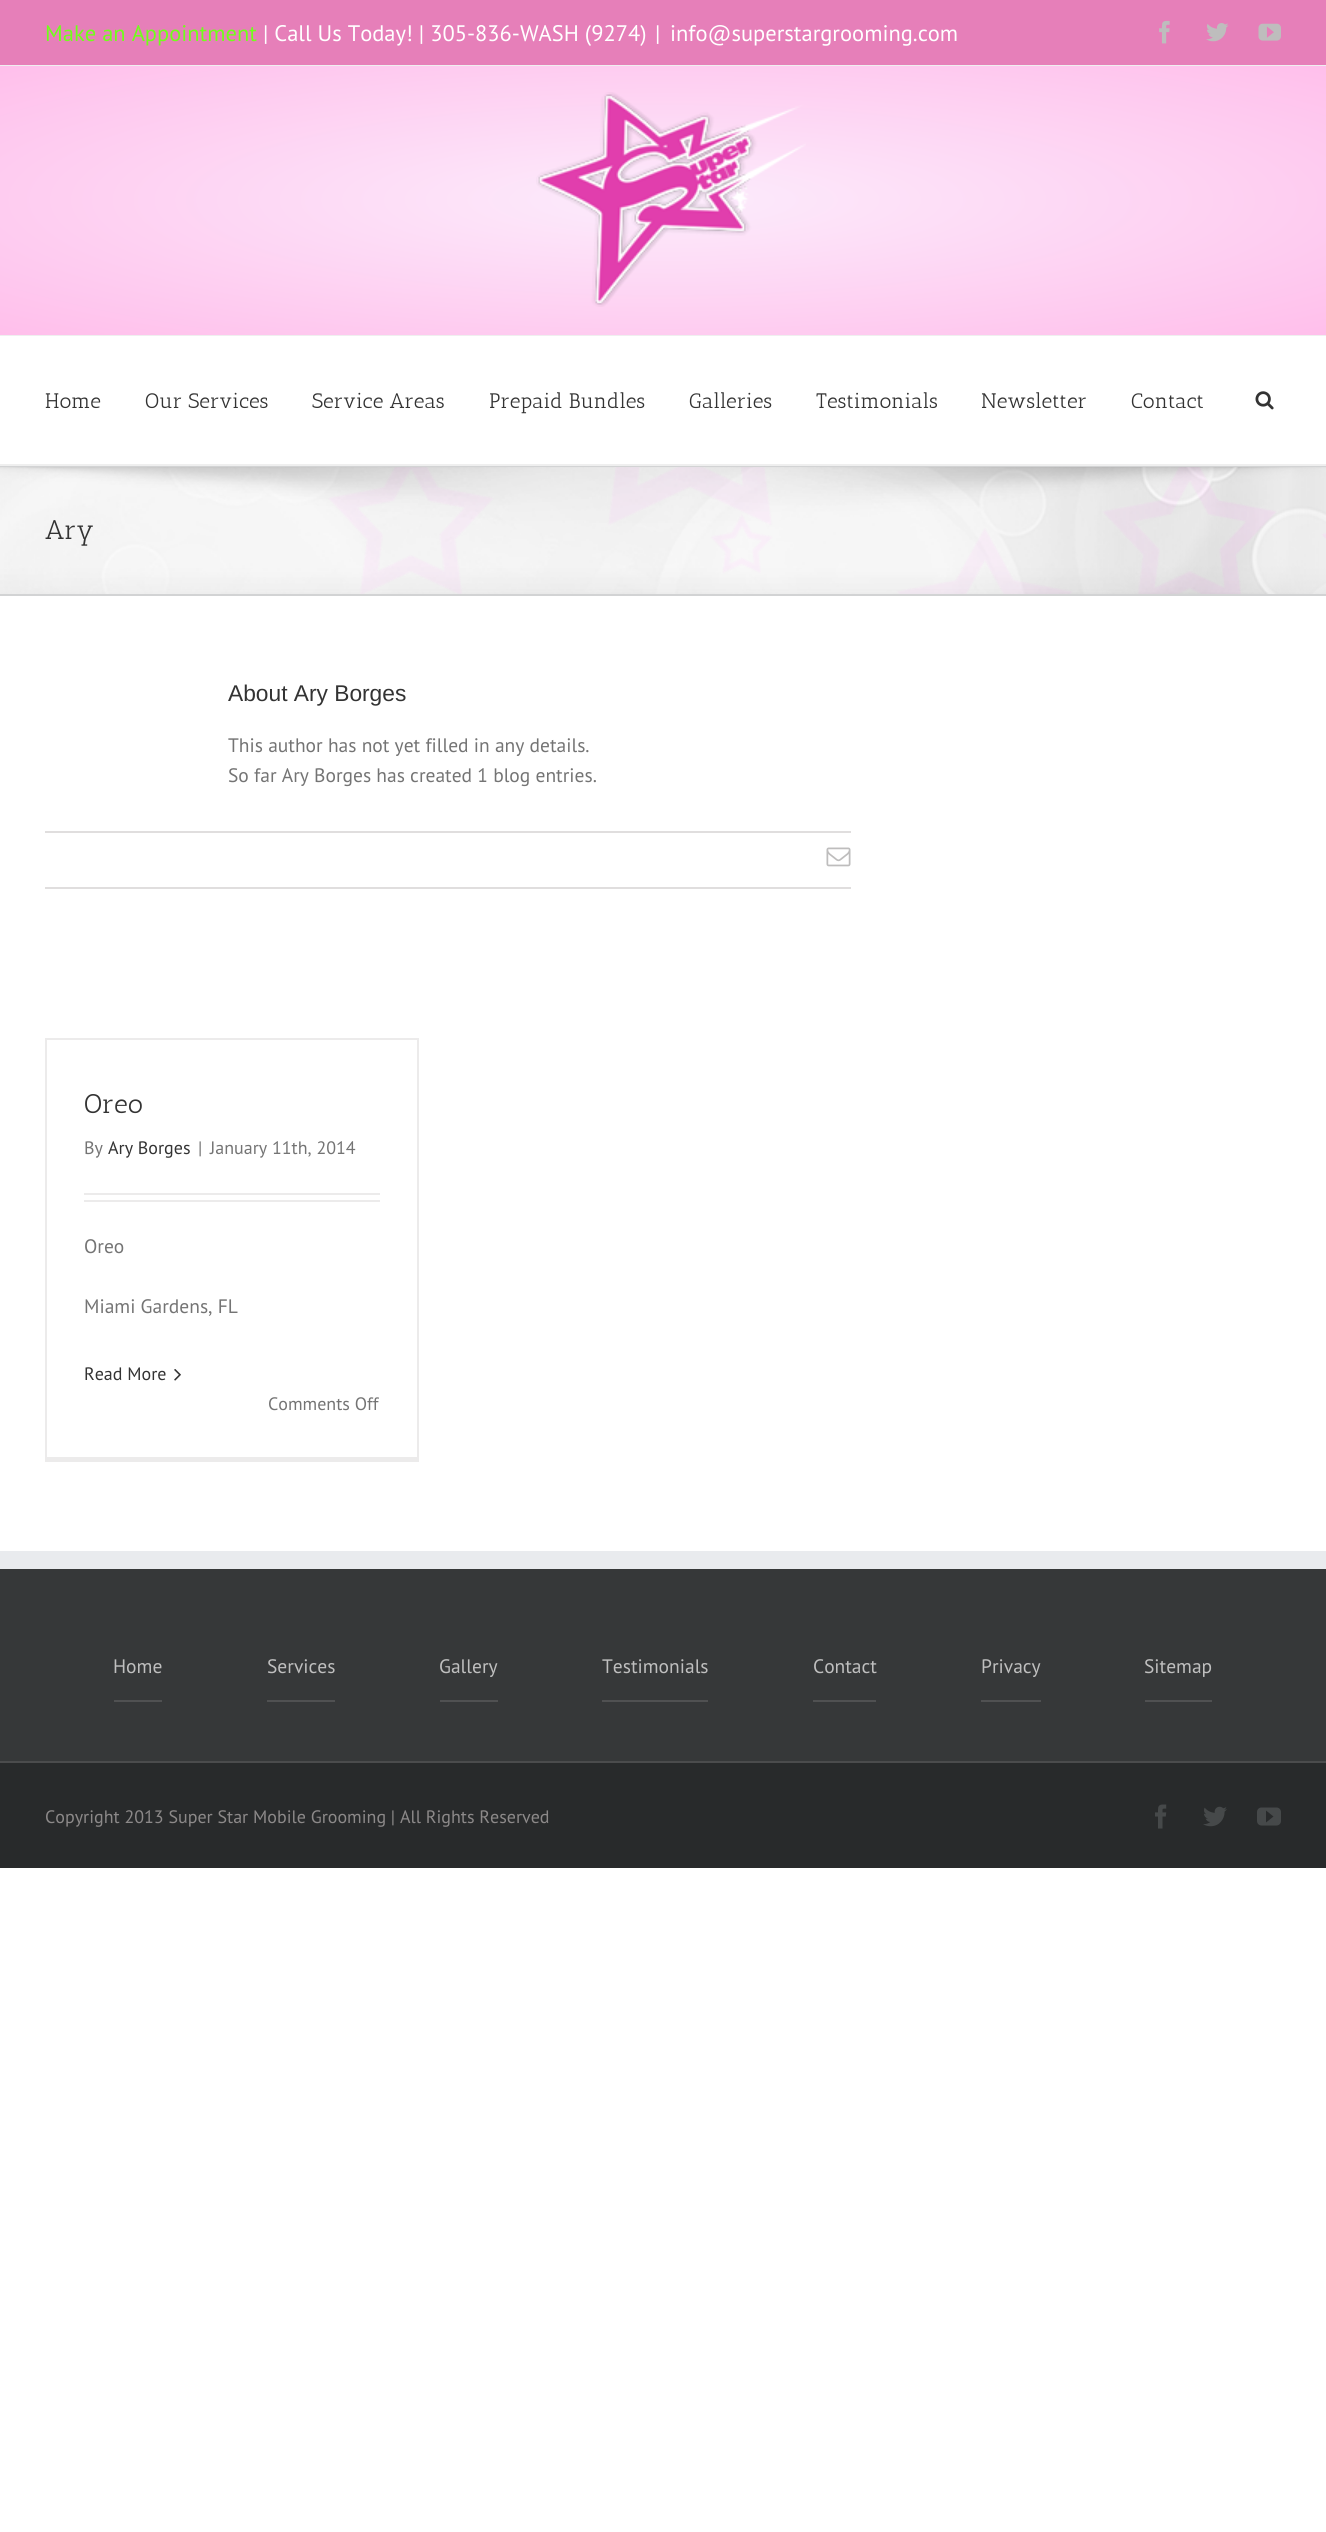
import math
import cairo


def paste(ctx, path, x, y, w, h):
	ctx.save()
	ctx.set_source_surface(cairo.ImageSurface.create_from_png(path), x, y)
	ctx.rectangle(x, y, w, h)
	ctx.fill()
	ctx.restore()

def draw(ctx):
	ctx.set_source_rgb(1, 1, 1)
	ctx.paint()
	ctx.set_source_rgb(0.902, 0.498, 0.725)
	ctx.rectangle(0, 0, 1326, 65)
	ctx.fill()
	ctx.set_source_rgb(0.937, 0.937, 0.937)
	ctx.rectangle(0, 65, 1326, 1)
	ctx.fill()
	ctx.select_font_face('PT Sans')
	ctx.set_font_size(22.5)
	ctx.set_source_rgb(0.439, 1, 0.102)
	ctx.move_to(45, 41)
	ctx.show_text('Make an Appointment')
	ctx.set_source_rgb(1, 1, 1)
	for x, y, s in [
		(263, 41, '| Call Us Today! | 305-836-WASH (9274)'),
		(655, 41, '|'),
		(670, 41, 'info@superstargrooming.com'),
	]:
		ctx.move_to(x, y)
		ctx.show_text(s)
	paste(ctx, 'media/1.png', 1159, 20, 11, 24)
	paste(ctx, 'media/2.png', 1206, 23, 23, 19)
	paste(ctx, 'media/3.png', 1258, 23, 23, 18)
	gradient = cairo.RadialGradient(0, 0, 0, 0, 0, 1)
	gradient.set_matrix(cairo.Matrix(1 / 938, 0, 0, 1 / 190, -1 * 663 / 938, -1 * 200 / 190))
	gradient.add_color_stop_rgba(0, 0.988, 0.925, 0.988, 1)
	gradient.add_color_stop_rgba(1, 1, 0.749, 0.922, 1)
	ctx.set_source(gradient)
	ctx.rectangle(0, 66, 1326, 269)
	ctx.fill()
	ctx.set_source_rgb(0.937, 0.937, 0.937)
	ctx.rectangle(0, 335, 1326, 1)
	ctx.fill()
	paste(ctx, 'media/4.png', 536, 92, 270, 215)
	ctx.rectangle(0, 464, 1326, 2)
	ctx.fill()
	ctx.select_font_face('Antic Slab')
	ctx.set_font_size(21)
	ctx.set_source_rgb(0.2, 0.2, 0.2)
	for x, y, s in [
		(45, 408, 'Home'),
		(145, 408, 'Our Services'),
		(312, 408, 'Service Areas'),
		(489, 408, 'Prepaid Bundles'),
		(689, 408, 'Galleries'),
		(816, 408, 'Testimonials'),
		(981, 408, 'Newsletter'),
		(1131, 408, 'Contact'),
	]:
		ctx.move_to(x, y)
		ctx.show_text(s)
	paste(ctx, 'media/5.png', 1255, 391, 19, 19)
	ctx.set_source_rgb(0.965, 0.965, 0.965)
	ctx.rectangle(0, 467, 1326, 127)
	ctx.fill()
	paste(ctx, 'media/6.png', 0, 467, 1326, 127)
	ctx.set_source_rgb(0.824, 0.827, 0.831)
	ctx.rectangle(0, 466, 1326, 1)
	ctx.fill()
	ctx.rectangle(0, 594, 1326, 2)
	ctx.fill()
	ctx.set_font_size(27)
	ctx.set_source_rgb(0.2, 0.2, 0.2)
	ctx.move_to(45, 539)
	ctx.show_text('Ary')
	ctx.select_font_face('Liberation Sans')
	ctx.set_font_size(22.75)
	ctx.move_to(228, 701)
	ctx.show_text('About Ary Borges')
	ctx.select_font_face('PT Sans')
	ctx.set_font_size(19.5)
	ctx.set_source_rgb(0.455, 0.455, 0.455)
	ctx.move_to(228, 752)
	ctx.show_text('This author has not yet filled in any details.')
	ctx.move_to(228, 782)
	ctx.show_text('So far Ary Borges has created 1 blog entries.')
	ctx.set_source_rgb(0.878, 0.871, 0.871)
	ctx.rectangle(45, 831, 806, 2)
	ctx.fill()
	ctx.rectangle(45, 887, 806, 2)
	ctx.fill()
	paste(ctx, 'media/7.png', 826, 847, 25, 20)
	ctx.set_source_rgb(0.922, 0.918, 0.918)
	ctx.rectangle(45, 1038, 374, 2)
	ctx.rectangle(417, 1038, 2, 423)
	ctx.rectangle(45, 1457, 374, 5)
	ctx.rectangle(45, 1038, 2, 423)
	ctx.fill()
	ctx.select_font_face('Antic Slab')
	ctx.set_font_size(27)
	ctx.set_source_rgb(0.2, 0.2, 0.2)
	ctx.move_to(84, 1113)
	ctx.show_text('Oreo')
	ctx.select_font_face('PT Sans')
	ctx.set_font_size(18)
	ctx.set_source_rgb(0.455, 0.455, 0.455)
	ctx.move_to(84, 1154)
	ctx.show_text('By')
	ctx.set_source_rgb(0.2, 0.2, 0.2)
	ctx.move_to(108, 1154)
	ctx.show_text('Ary Borges')
	ctx.set_source_rgb(0.455, 0.455, 0.455)
	ctx.move_to(198, 1154)
	ctx.show_text('|')
	ctx.move_to(210, 1154)
	ctx.show_text('January 11th, 2014')
	ctx.set_source_rgb(0.922, 0.918, 0.918)
	ctx.rectangle(84, 1193, 296, 2)
	ctx.fill()
	ctx.rectangle(84, 1200, 296, 2)
	ctx.fill()
	ctx.set_font_size(19.5)
	ctx.set_source_rgb(0.455, 0.455, 0.455)
	ctx.move_to(84, 1253)
	ctx.show_text('Oreo')
	ctx.move_to(84, 1313)
	ctx.show_text('Miami Gardens, FL')
	ctx.set_font_size(18)
	ctx.set_source_rgb(0.2, 0.2, 0.2)
	ctx.move_to(84, 1380)
	ctx.show_text('Read More')
	paste(ctx, 'media/8.png', 174, 1369, 7, 12)
	ctx.set_source_rgb(0.455, 0.455, 0.455)
	ctx.move_to(268, 1410)
	ctx.show_text('Comments Off')
	ctx.set_source_rgb(0.212, 0.22, 0.224)
	ctx.rectangle(0, 1569, 1326, 192)
	ctx.fill()
	ctx.set_source_rgb(0.914, 0.918, 0.933)
	ctx.rectangle(0, 1551, 1326, 18)
	ctx.fill()
	ctx.set_source_rgb(0.314, 0.318, 0.322)
	ctx.rectangle(114, 1700, 48, 2)
	ctx.fill()
	ctx.set_font_size(19.5)
	ctx.set_source_rgb(0.749, 0.749, 0.749)
	ctx.move_to(113, 1673)
	ctx.show_text('Home')
	ctx.set_source_rgb(0.314, 0.318, 0.322)
	ctx.rectangle(267, 1700, 68, 2)
	ctx.fill()
	ctx.set_source_rgb(0.749, 0.749, 0.749)
	ctx.move_to(267, 1673)
	ctx.show_text('Services')
	ctx.set_source_rgb(0.314, 0.318, 0.322)
	ctx.rectangle(440, 1700, 58, 2)
	ctx.fill()
	ctx.set_source_rgb(0.749, 0.749, 0.749)
	ctx.move_to(439, 1673)
	ctx.show_text('Gallery')
	ctx.set_source_rgb(0.314, 0.318, 0.322)
	ctx.rectangle(602, 1700, 106, 2)
	ctx.fill()
	ctx.set_source_rgb(0.749, 0.749, 0.749)
	ctx.move_to(602, 1673)
	ctx.show_text('Testimonials')
	ctx.set_source_rgb(0.314, 0.318, 0.322)
	ctx.rectangle(813, 1700, 63, 2)
	ctx.fill()
	ctx.set_source_rgb(0.749, 0.749, 0.749)
	ctx.move_to(813, 1673)
	ctx.show_text('Contact')
	ctx.set_source_rgb(0.314, 0.318, 0.322)
	ctx.rectangle(981, 1700, 60, 2)
	ctx.fill()
	ctx.set_source_rgb(0.749, 0.749, 0.749)
	ctx.move_to(981, 1673)
	ctx.show_text('Privacy')
	ctx.set_source_rgb(0.314, 0.318, 0.322)
	ctx.rectangle(1145, 1700, 67, 2)
	ctx.fill()
	ctx.set_source_rgb(0.749, 0.749, 0.749)
	ctx.move_to(1144, 1673)
	ctx.show_text('Sitemap')
	ctx.set_source_rgb(0.157, 0.165, 0.169)
	ctx.rectangle(0, 1763, 1326, 105)
	ctx.fill()
	ctx.set_source_rgb(0.294, 0.298, 0.302)
	ctx.rectangle(0, 1761, 1326, 2)
	ctx.fill()
	ctx.set_font_size(18)
	ctx.set_source_rgb(0.549, 0.537, 0.537)
	ctx.move_to(45, 1823)
	ctx.show_text('Copyright 2013 Super Star Mobile Grooming | All Rights Reserved')
	paste(ctx, 'media/9.png', 1155, 1804, 12, 25)
	paste(ctx, 'media/10.png', 1203, 1806, 24, 21)
	paste(ctx, 'media/11.png', 1257, 1807, 24, 19)


surface = cairo.ImageSurface(cairo.FORMAT_RGB24, 1326, 2532)
ctx = cairo.Context(surface)
options = cairo.FontOptions()
options.set_hint_metrics(cairo.HINT_METRICS_OFF)
options.set_hint_style(cairo.HINT_STYLE_NONE)
ctx.set_font_options(options)
ctx.set_miter_limit(4)
draw(ctx)
surface.write_to_png('image.png')
